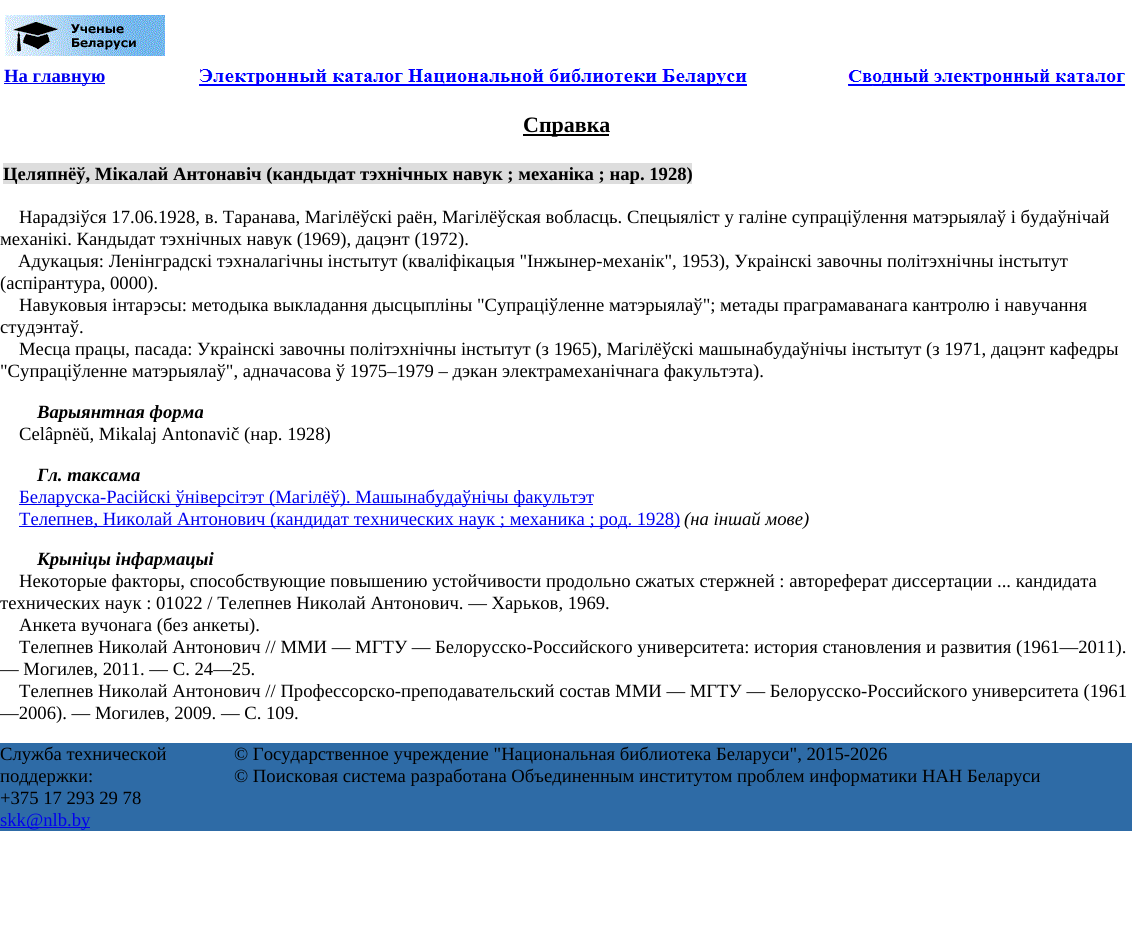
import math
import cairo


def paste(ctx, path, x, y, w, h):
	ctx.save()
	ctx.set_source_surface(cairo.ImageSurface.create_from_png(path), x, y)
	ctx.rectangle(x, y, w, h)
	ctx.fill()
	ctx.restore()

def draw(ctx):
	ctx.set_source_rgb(1, 1, 1)
	ctx.paint()
	paste(ctx, 'media/1.png', 5, 15, 160, 41)
	ctx.set_source_rgb(0, 0, 0.933)
	ctx.rectangle(4, 83, 101, 1)
	ctx.fill()
	ctx.select_font_face('Liberation Serif', cairo.FONT_SLANT_NORMAL, cairo.FONT_WEIGHT_BOLD)
	ctx.set_font_size(18.67)
	ctx.move_to(4, 82)
	ctx.show_text('На главную')
	paste(ctx, 'media/2.png', 199, 68, 548, 18)
	paste(ctx, 'media/3.png', 848, 69, 277, 17)
	ctx.set_source_rgb(0, 0, 0)
	ctx.rectangle(523, 134, 86, 2)
	ctx.fill()
	ctx.set_font_size(22)
	ctx.move_to(523, 132)
	ctx.show_text('Справка')
	ctx.set_source_rgb(0.867, 0.867, 0.867)
	ctx.rectangle(3, 163, 689, 21)
	ctx.fill()
	ctx.set_font_size(18.67)
	ctx.set_source_rgb(0, 0, 0)
	ctx.move_to(3, 180)
	ctx.show_text('Целяпнёў, Мікалай Антонавіч (кандыдат тэхнічных навук ; механіка ; нар. 1928)')
	ctx.select_font_face('Liberation Serif')
	for x, y, s in [
		(19, 223, 'Нарадзіўся 17.06.1928, в. Таранава, Магілёўскі раён, Магілёўская вобласць. Спецыяліст у галіне супраціўлення матэрыялаў і будаўнічай'),
		(0, 245, 'механікі. Кандыдат тэхнічных навук (1969), дацэнт (1972).'),
		(18, 267, 'Адукацыя: Ленінградскі тэхналагічны інстытут (кваліфікацыя "Інжынер-механік", 1953), Украінскі завочны політэхнічны інстытут'),
		(0, 289, '(аспірантура, 0000).'),
		(19, 311, 'Навуковыя інтарэсы: методыка выкладання дысцыпліны "Супраціўленне матэрыялаў"; метады праграмаванага кантролю і навучання'),
		(0, 333, 'студэнтаў.'),
		(19, 355, 'Месца працы, пасада: Украінскі завочны політэхнічны інстытут (з 1965), Магілёўскі машынабудаўнічы інстытут (з 1971, дацэнт кафедры'),
		(0, 377, '"Супраціўленне матэрыялаў", адначасова ў 1975–1979 – дэкан электрамеханічнага факультэта).'),
	]:
		ctx.move_to(x, y)
		ctx.show_text(s)
	ctx.select_font_face('Liberation Serif', cairo.FONT_SLANT_ITALIC, cairo.FONT_WEIGHT_BOLD)
	ctx.move_to(37, 418)
	ctx.show_text('Варыянтная форма')
	ctx.select_font_face('Liberation Serif')
	ctx.move_to(19, 440)
	ctx.show_text('Celâpnëŭ, Mikalaj Antonavič (нар. 1928)')
	ctx.select_font_face('Liberation Serif', cairo.FONT_SLANT_ITALIC, cairo.FONT_WEIGHT_BOLD)
	ctx.move_to(37, 481)
	ctx.show_text('Гл. таксама')
	ctx.set_source_rgb(0, 0, 0.933)
	ctx.rectangle(19, 504, 574, 1)
	ctx.fill()
	ctx.select_font_face('Liberation Serif')
	ctx.move_to(19, 503)
	ctx.show_text('Беларуска-Расійскі ўніверсітэт (Магілёў). Машынабудаўнічы факультэт')
	ctx.rectangle(19, 526, 661, 1)
	ctx.fill()
	ctx.move_to(19, 525)
	ctx.show_text('Телепнев, Николай Антонович (кандидат технических наук ; механика ; род. 1928)')
	ctx.select_font_face('Liberation Serif', cairo.FONT_SLANT_ITALIC)
	ctx.set_source_rgb(0, 0, 0)
	ctx.move_to(684, 525)
	ctx.show_text('(на іншай мове)')
	ctx.select_font_face('Liberation Serif', cairo.FONT_SLANT_ITALIC, cairo.FONT_WEIGHT_BOLD)
	ctx.move_to(37, 565)
	ctx.show_text('Крыніцы інфармацыі')
	ctx.select_font_face('Liberation Serif')
	for x, y, s in [
		(19, 587, 'Некоторые факторы, способствующие повышению устойчивости продольно сжатых стержней : автореферат диссертации ... кандидата'),
		(0, 609, 'технических наук : 01022 / Телепнев Николай Антонович. ― Харьков, 1969.'),
		(19, 631, 'Анкета вучонага (без анкеты).'),
		(19, 653, 'Телепнев Николай Антонович // ММИ — МГТУ — Белорусско-Российского университета: история становления и развития (1961—2011).'),
		(0, 675, '— Могилев, 2011. — С. 24—25.'),
		(19, 697, 'Телепнев Николай Антонович // Профессорско-преподавательский состав ММИ — МГТУ — Белорусско-Российского университета (1961'),
		(0, 719, '—2006). — Могилев, 2009. — С. 109.'),
	]:
		ctx.move_to(x, y)
		ctx.show_text(s)
	ctx.set_source_rgb(0.18, 0.42, 0.651)
	ctx.rectangle(0, 743, 1132, 88)
	ctx.fill()
	ctx.set_source_rgb(0, 0, 0)
	for x, y, s in [
		(0, 760, 'Служба технической'),
		(0, 782, 'поддержки:'),
		(0, 804, '+375 17 293 29 78'),
	]:
		ctx.move_to(x, y)
		ctx.show_text(s)
	ctx.set_source_rgb(0, 0, 0.933)
	ctx.rectangle(0, 827, 90, 1)
	ctx.fill()
	ctx.move_to(0, 826)
	ctx.show_text('skk@nlb.by')
	ctx.set_source_rgb(0, 0, 0)
	ctx.move_to(234, 760)
	ctx.show_text('© Государственное учреждение "Национальная библиотека Беларуси", 2015-2026')
	ctx.move_to(234, 782)
	ctx.show_text('© Поисковая система разработана Объединенным институтом проблем информатики НАН Беларуси')


surface = cairo.ImageSurface(cairo.FORMAT_RGB24, 1132, 928)
ctx = cairo.Context(surface)
options = cairo.FontOptions()
options.set_hint_metrics(cairo.HINT_METRICS_OFF)
options.set_hint_style(cairo.HINT_STYLE_NONE)
ctx.set_font_options(options)
ctx.set_miter_limit(4)
draw(ctx)
surface.write_to_png('image.png')
